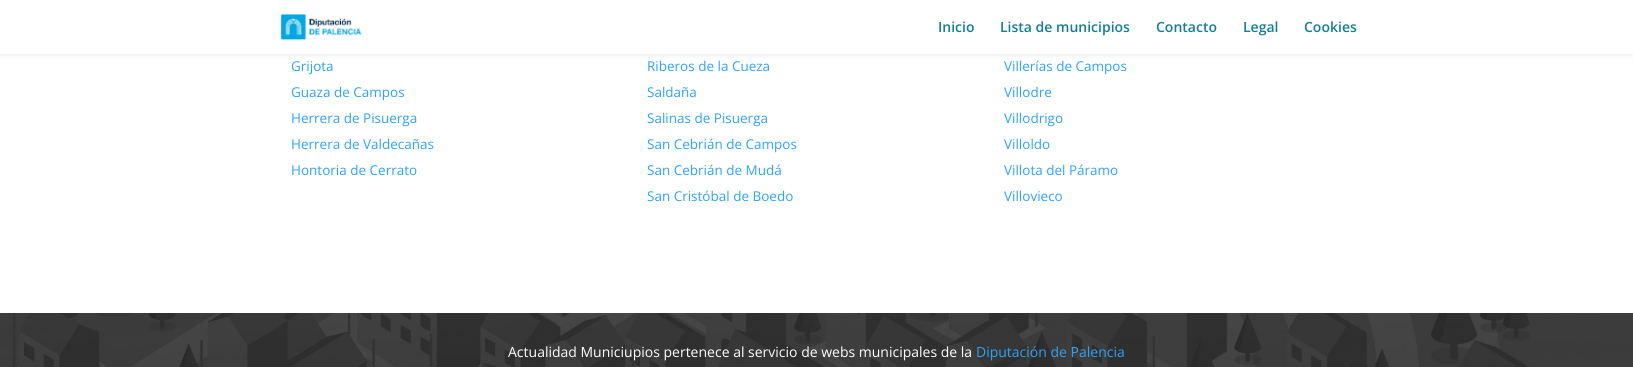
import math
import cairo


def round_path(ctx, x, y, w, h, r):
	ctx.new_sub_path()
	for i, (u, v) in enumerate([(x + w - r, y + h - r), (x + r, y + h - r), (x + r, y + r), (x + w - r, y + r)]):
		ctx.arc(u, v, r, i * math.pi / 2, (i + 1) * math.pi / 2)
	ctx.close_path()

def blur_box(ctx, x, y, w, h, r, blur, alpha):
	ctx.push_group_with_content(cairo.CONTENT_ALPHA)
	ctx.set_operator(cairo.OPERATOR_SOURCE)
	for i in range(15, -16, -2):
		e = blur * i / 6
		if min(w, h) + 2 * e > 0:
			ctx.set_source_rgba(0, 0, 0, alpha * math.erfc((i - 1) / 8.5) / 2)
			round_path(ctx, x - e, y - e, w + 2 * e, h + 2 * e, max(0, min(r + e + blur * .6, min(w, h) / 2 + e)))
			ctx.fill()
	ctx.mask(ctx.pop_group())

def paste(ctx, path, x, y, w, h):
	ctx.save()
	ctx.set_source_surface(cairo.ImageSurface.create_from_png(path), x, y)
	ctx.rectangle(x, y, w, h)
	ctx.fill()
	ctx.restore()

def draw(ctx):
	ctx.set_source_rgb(1, 1, 1)
	ctx.paint()
	ctx.set_source_rgb(0, 0, 0)
	blur_box(ctx, 0, 0, 1633, 54, 0, 3.5, 0.1)
	ctx.set_source_rgb(1, 1, 1)
	ctx.rectangle(0, 0, 1633, 54)
	ctx.fill()
	paste(ctx, 'media/1.png', 281, 14, 81, 27)
	ctx.select_font_face('Open Sans SemiBold')
	ctx.set_font_size(14)
	ctx.set_source_rgb(0.075, 0.49, 0.576)
	for x, y, s in [
		(938, 32, 'Inicio'),
		(1000, 32, 'Lista de municipios'),
		(1156, 32, 'Contacto'),
		(1243, 32, 'Legal'),
		(1304, 32, 'Cookies'),
	]:
		ctx.move_to(x, y)
		ctx.show_text(s)
	ctx.select_font_face('Open Sans')
	ctx.set_font_size(13.5)
	ctx.set_source_rgb(0.18, 0.639, 0.949)
	for x, y, s in [
		(291, 71, 'Grijota'),
		(291, 97, 'Guaza de Campos'),
		(291, 123, 'Herrera de Pisuerga'),
		(291, 149, 'Herrera de Valdecañas'),
		(291, 175, 'Hontoria de Cerrato'),
		(647, 71, 'Riberos de la Cueza'),
		(647, 97, 'Saldaña'),
		(647, 123, 'Salinas de Pisuerga'),
		(647, 149, 'San Cebrián de Campos'),
		(647, 175, 'San Cebrián de Mudá'),
		(647, 201, 'San Cristóbal de Boedo'),
		(1004, 71, 'Villerías de Campos'),
		(1004, 97, 'Villodre'),
		(1004, 123, 'Villodrigo'),
		(1004, 149, 'Villoldo'),
		(1004, 175, 'Villota del Páramo'),
		(1004, 201, 'Villovieco'),
	]:
		ctx.move_to(x, y)
		ctx.show_text(s)
	paste(ctx, 'media/2.png', 0, 313, 1633, 54)
	ctx.set_font_size(14)
	ctx.set_source_rgb(1, 1, 1)
	ctx.move_to(508, 357)
	ctx.show_text('Actualidad Municiupios pertenece al servicio de webs municipales de la')
	ctx.set_source_rgb(0.18, 0.639, 0.949)
	ctx.move_to(976, 357)
	ctx.show_text('Diputación de Palencia')


surface = cairo.ImageSurface(cairo.FORMAT_RGB24, 1633, 367)
ctx = cairo.Context(surface)
options = cairo.FontOptions()
options.set_hint_metrics(cairo.HINT_METRICS_OFF)
options.set_hint_style(cairo.HINT_STYLE_NONE)
ctx.set_font_options(options)
ctx.set_miter_limit(4)
draw(ctx)
surface.write_to_png('image.png')
